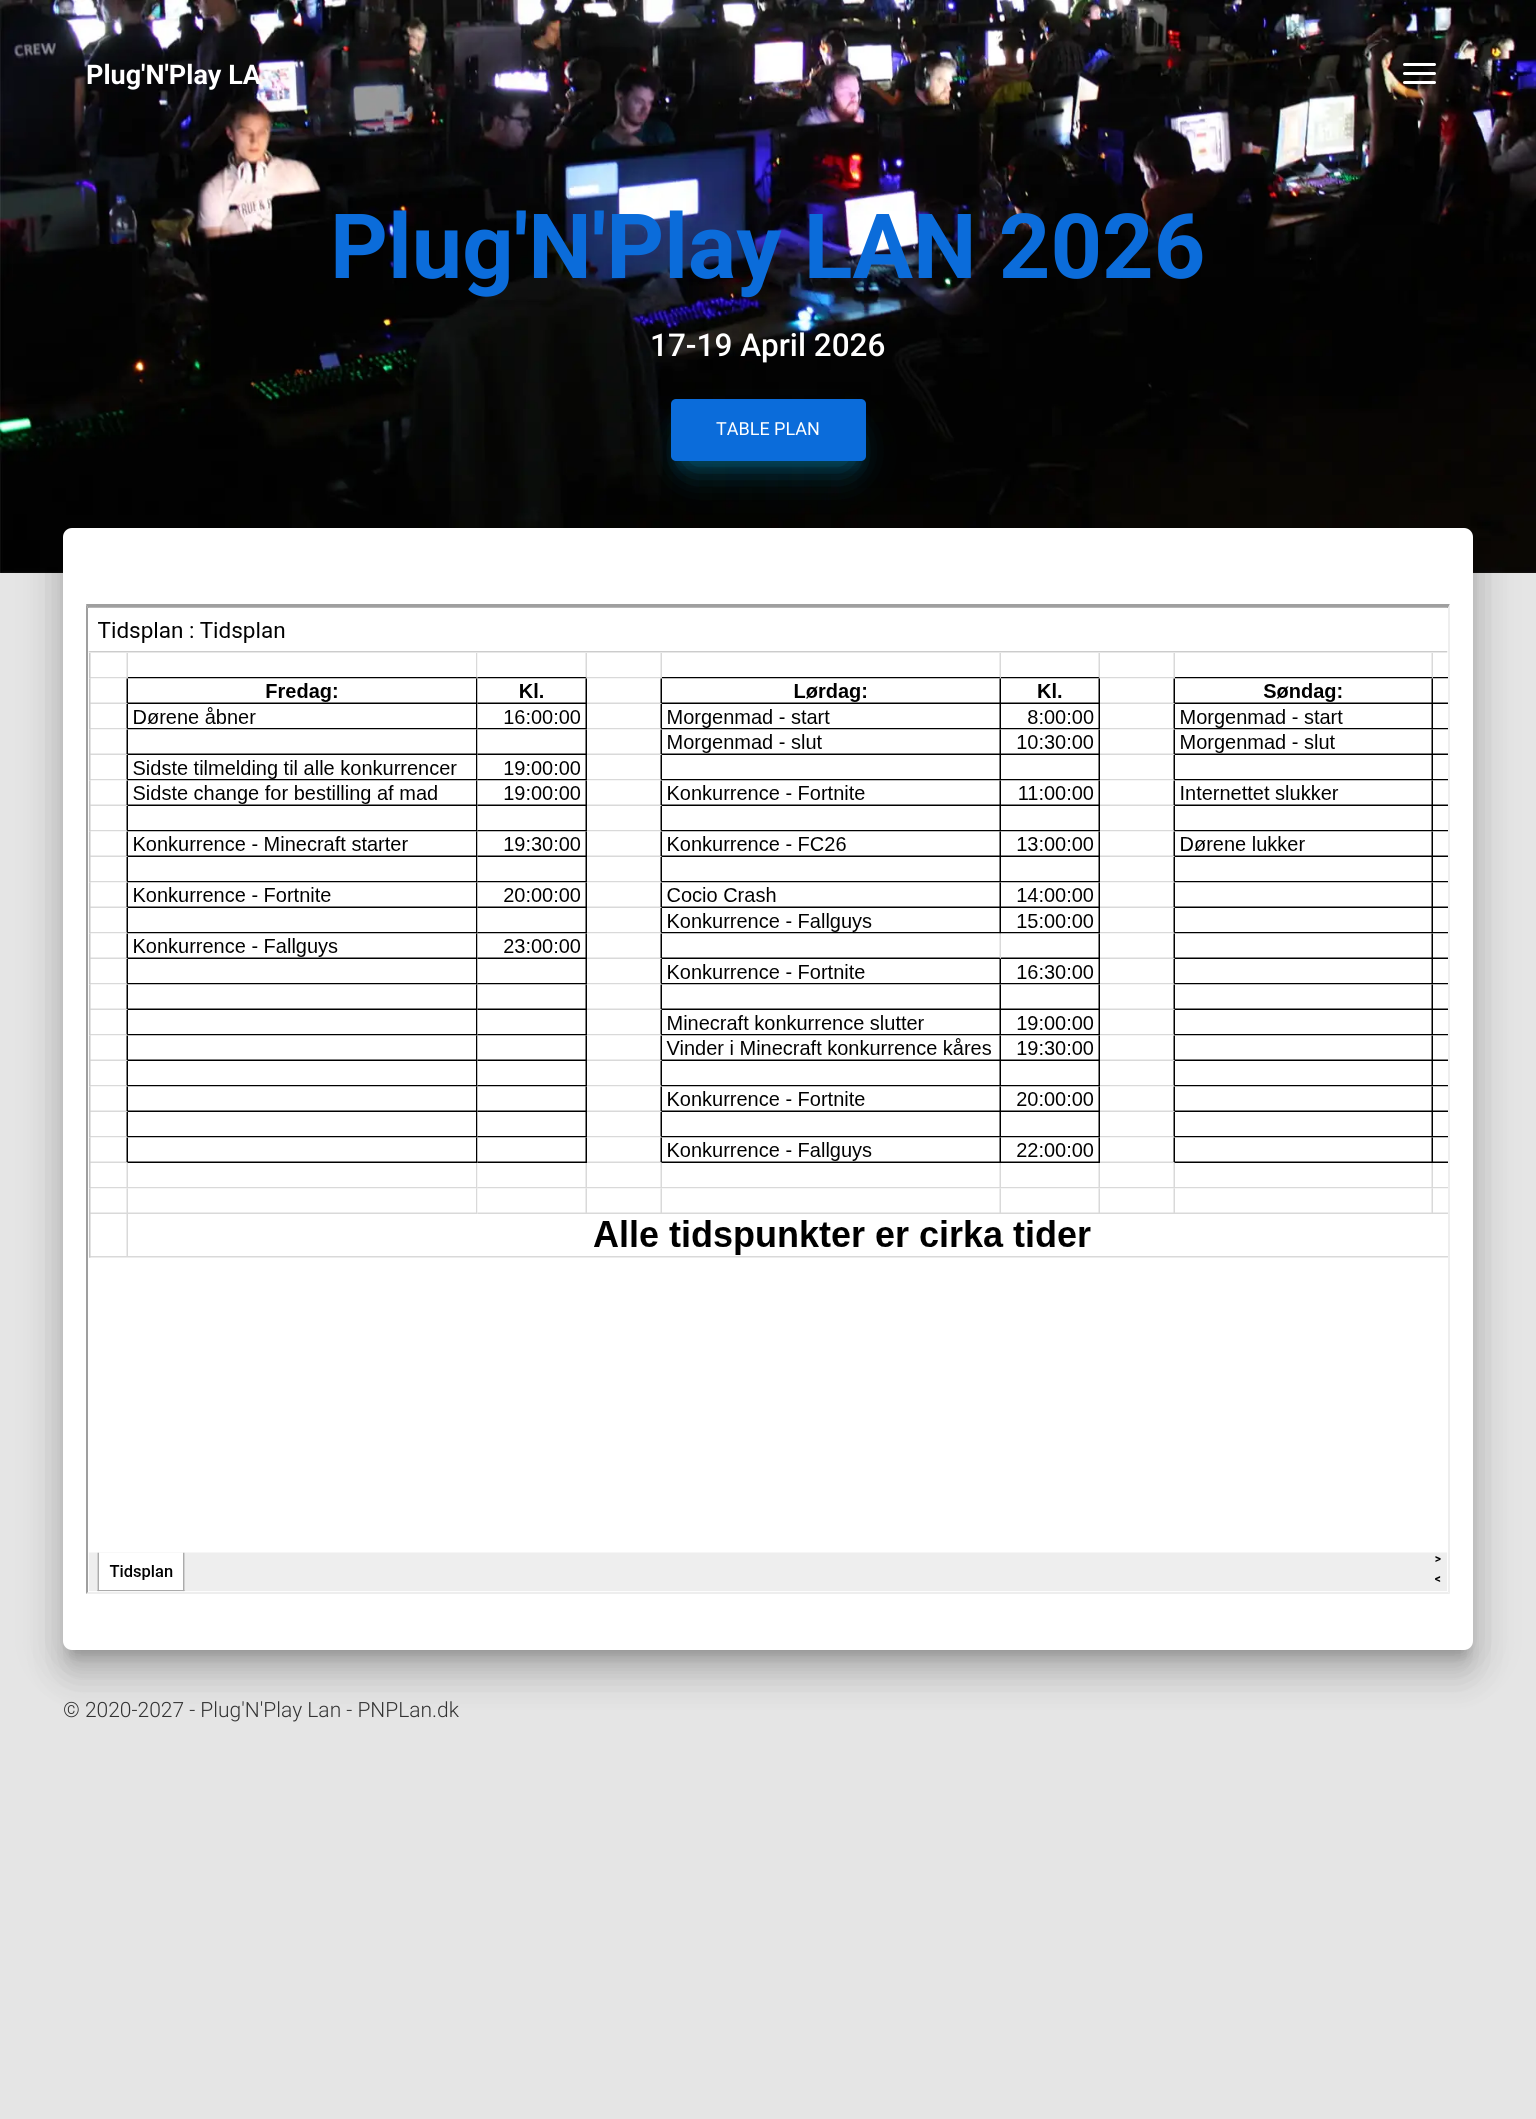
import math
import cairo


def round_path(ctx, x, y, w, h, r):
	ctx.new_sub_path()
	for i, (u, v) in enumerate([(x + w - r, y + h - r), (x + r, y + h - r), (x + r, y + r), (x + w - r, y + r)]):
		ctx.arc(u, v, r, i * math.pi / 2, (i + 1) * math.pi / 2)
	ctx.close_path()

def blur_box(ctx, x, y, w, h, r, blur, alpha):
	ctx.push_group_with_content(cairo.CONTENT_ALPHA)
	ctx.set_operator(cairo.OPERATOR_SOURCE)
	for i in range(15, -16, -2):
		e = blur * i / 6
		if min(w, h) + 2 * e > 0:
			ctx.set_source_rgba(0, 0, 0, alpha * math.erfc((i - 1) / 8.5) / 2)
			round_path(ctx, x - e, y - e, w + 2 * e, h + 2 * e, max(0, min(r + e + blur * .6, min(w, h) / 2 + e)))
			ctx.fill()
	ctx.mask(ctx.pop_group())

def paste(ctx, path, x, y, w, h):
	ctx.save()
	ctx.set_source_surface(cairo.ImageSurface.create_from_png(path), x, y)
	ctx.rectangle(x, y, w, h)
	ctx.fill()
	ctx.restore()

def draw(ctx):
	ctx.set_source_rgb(0.898, 0.898, 0.898)
	ctx.paint()
	paste(ctx, 'media/1.png', 0, 0, 1536, 573)
	ctx.select_font_face('Roboto', cairo.FONT_SLANT_NORMAL, cairo.FONT_WEIGHT_BOLD)
	ctx.set_font_size(27)
	ctx.set_source_rgb(1, 1, 1)
	ctx.move_to(86, 84)
	ctx.show_text('Plug\'N\'Play LA')
	round_path(ctx, 1403, 63, 33, 3, 1.5)
	ctx.fill()
	round_path(ctx, 1403, 72, 33, 3, 1.5)
	ctx.fill()
	round_path(ctx, 1403, 81, 33, 3, 1.5)
	ctx.fill()
	ctx.set_font_size(90)
	ctx.set_source_rgb(0.043, 0.424, 0.855)
	ctx.move_to(330, 278)
	ctx.show_text('Plug\'N\'Play LAN 2026')
	ctx.select_font_face('Roboto Medium')
	ctx.set_font_size(31.5)
	ctx.set_source_rgb(1, 1, 1)
	ctx.move_to(650, 356)
	ctx.show_text('17-19 April 2026')
	ctx.set_source_rgb(0, 0.749, 1)
	blur_box(ctx, 678, 419, 180, 46, 0, 7.5, 0.2)
	blur_box(ctx, 689, 438, 159, 26, 0, 19.5, 0.42)
	ctx.set_source_rgb(0.043, 0.424, 0.855)
	round_path(ctx, 671, 399, 195, 62, 5)
	ctx.fill()
	ctx.select_font_face('Roboto')
	ctx.set_font_size(18)
	ctx.set_source_rgb(1, 1, 1)
	ctx.move_to(716, 435)
	ctx.show_text('TABLE PLAN')
	ctx.set_source_rgb(0, 0, 0)
	blur_box(ctx, 71, 548, 1395, 1107, 1.5, 7.5, 0.2)
	blur_box(ctx, 56, 530, 1425, 1137, 17, 22.5, 0.12)
	blur_box(ctx, 60, 549, 1416, 1128, 12, 18, 0.14)
	ctx.set_source_rgb(1, 1, 1)
	round_path(ctx, 63, 528, 1410, 1122, 9)
	ctx.fill()
	ctx.set_source_rgb(0.624, 0.624, 0.624)
	ctx.new_path()
	ctx.move_to(86, 604)
	ctx.line_to(1450, 604)
	ctx.line_to(1448, 608)
	ctx.line_to(88, 608)
	ctx.close_path()
	ctx.fill()
	ctx.set_source_rgb(0.933, 0.933, 0.933)
	ctx.new_path()
	ctx.move_to(1450, 604)
	ctx.line_to(1450, 1594)
	ctx.line_to(1448, 1592)
	ctx.line_to(1448, 608)
	ctx.close_path()
	ctx.fill()
	ctx.new_path()
	ctx.move_to(1450, 1594)
	ctx.line_to(86, 1594)
	ctx.line_to(88, 1592)
	ctx.line_to(1448, 1592)
	ctx.close_path()
	ctx.fill()
	ctx.set_source_rgb(0.624, 0.624, 0.624)
	ctx.new_path()
	ctx.move_to(86, 1594)
	ctx.line_to(86, 604)
	ctx.line_to(88, 608)
	ctx.line_to(88, 1592)
	ctx.close_path()
	ctx.fill()
	paste(ctx, 'media/2.png', 88, 607, 1360, 985)
	ctx.select_font_face('Roboto Light')
	ctx.set_font_size(21)
	ctx.set_source_rgb(0.2, 0.2, 0.2)
	ctx.move_to(63, 1717)
	ctx.show_text('© 2020-2027 - Plug\'N\'Play Lan - PNPLan.dk')


surface = cairo.ImageSurface(cairo.FORMAT_RGB24, 1536, 2119)
ctx = cairo.Context(surface)
options = cairo.FontOptions()
options.set_hint_metrics(cairo.HINT_METRICS_OFF)
options.set_hint_style(cairo.HINT_STYLE_NONE)
ctx.set_font_options(options)
ctx.set_miter_limit(4)
draw(ctx)
surface.write_to_png('image.png')
